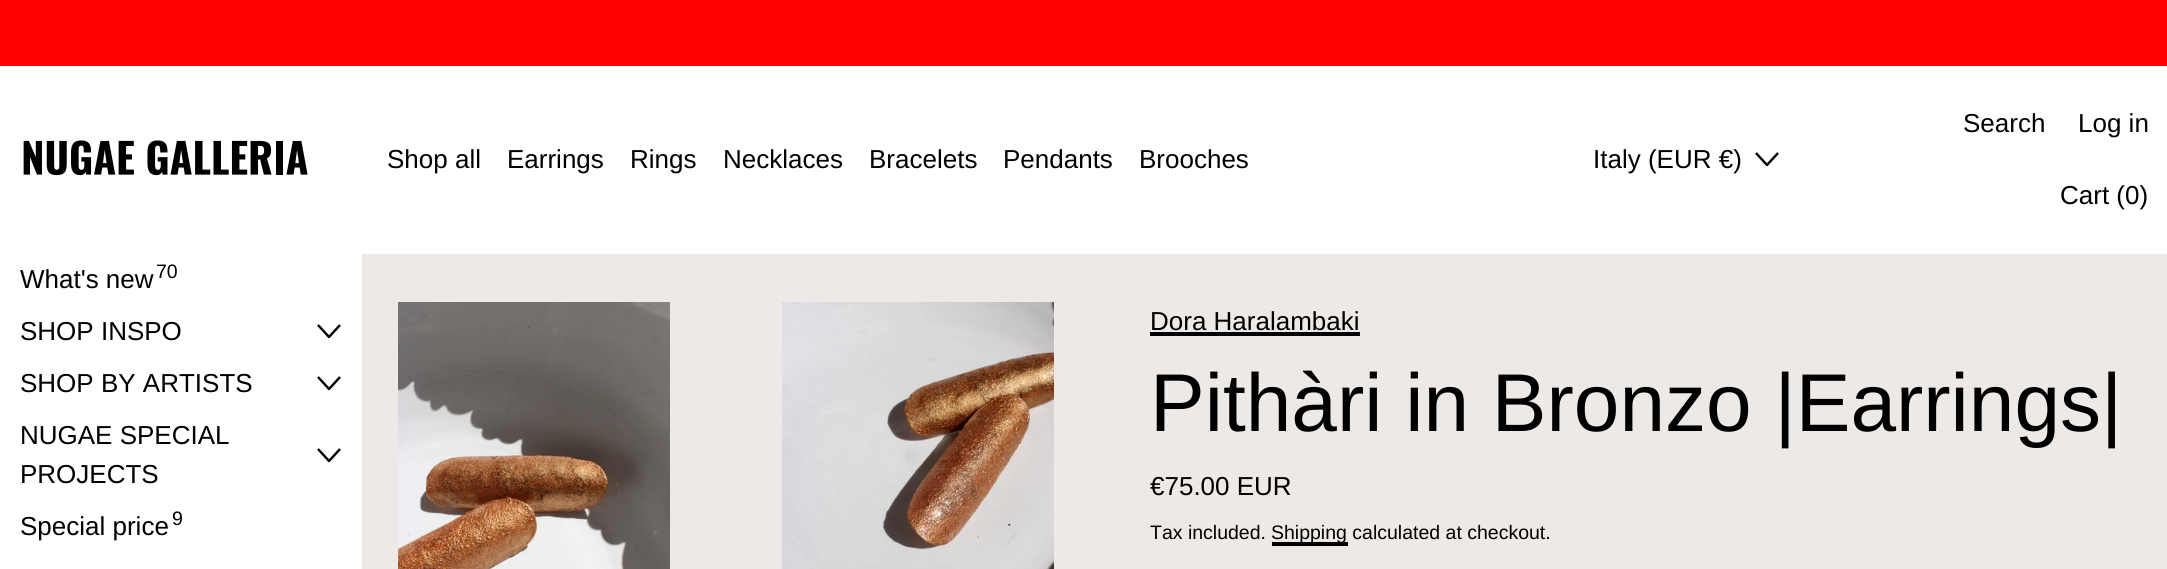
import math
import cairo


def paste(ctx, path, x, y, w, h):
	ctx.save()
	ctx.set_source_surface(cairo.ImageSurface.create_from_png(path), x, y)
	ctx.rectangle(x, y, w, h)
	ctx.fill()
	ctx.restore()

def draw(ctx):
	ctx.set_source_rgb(1, 1, 1)
	ctx.paint()
	ctx.set_source_rgb(1, 0, 0)
	ctx.rectangle(0, 0, 2167, 66)
	ctx.fill()
	paste(ctx, 'media/1.png', 23, 140, 285, 36)
	ctx.select_font_face('Liberation Sans')
	ctx.set_font_size(26)
	ctx.set_source_rgb(0, 0, 0)
	for x, y, s in [
		(387, 168, 'Shop all'),
		(507, 168, 'Earrings'),
		(630, 168, 'Rings'),
		(723, 168, 'Necklaces'),
		(869, 168, 'Bracelets'),
		(1003, 168, 'Pendants'),
		(1139, 168, 'Brooches'),
		(1593, 168, 'Italy (EUR €)'),
	]:
		ctx.move_to(x, y)
		ctx.show_text(s)
	ctx.new_path()
	ctx.move_to(1756, 153)
	ctx.line_to(1767, 165)
	ctx.line_to(1778, 153)
	ctx.set_line_width(2.4)
	ctx.set_line_join(cairo.LINE_JOIN_ROUND)
	ctx.stroke()
	for x, y, s in [
		(1963, 132, 'Search'),
		(2078, 132, 'Log in'),
		(2060, 204, 'Cart (0)'),
		(20, 288, 'What\'s new'),
	]:
		ctx.move_to(x, y)
		ctx.show_text(s)
	ctx.set_font_size(19.5)
	ctx.move_to(156, 278)
	ctx.show_text('70')
	ctx.set_font_size(26)
	ctx.move_to(20, 340)
	ctx.show_text('SHOP INSPO')
	ctx.new_path()
	ctx.move_to(318, 325)
	ctx.line_to(329, 337)
	ctx.line_to(340, 325)
	ctx.stroke()
	ctx.move_to(20, 392)
	ctx.show_text('SHOP BY ARTISTS')
	ctx.new_path()
	ctx.move_to(318, 377)
	ctx.line_to(329, 389)
	ctx.line_to(340, 377)
	ctx.stroke()
	ctx.move_to(20, 444)
	ctx.show_text('NUGAE SPECIAL')
	ctx.move_to(20, 483)
	ctx.show_text('PROJECTS')
	ctx.new_path()
	ctx.move_to(318, 449)
	ctx.line_to(329, 461)
	ctx.line_to(340, 449)
	ctx.stroke()
	ctx.move_to(20, 535)
	ctx.show_text('Special price')
	ctx.set_font_size(19.5)
	ctx.move_to(172, 525)
	ctx.show_text('9')
	ctx.set_source_rgb(0.925, 0.914, 0.902)
	ctx.rectangle(362, 254, 1805, 315)
	ctx.fill()
	paste(ctx, 'media/2.png', 398, 302, 272, 267)
	paste(ctx, 'media/3.png', 782, 302, 272, 267)
	ctx.set_font_size(26)
	ctx.set_source_rgb(0, 0, 0)
	ctx.move_to(1150, 330)
	ctx.show_text('Dora Haralambaki')
	ctx.rectangle(1150, 332, 210, 4)
	ctx.fill()
	ctx.set_font_size(82)
	ctx.move_to(1150, 431)
	ctx.show_text('Pithàri in Bronzo |Earrings|')
	ctx.set_font_size(26)
	ctx.move_to(1150, 495)
	ctx.show_text('€75.00 EUR')
	ctx.set_font_size(19.5)
	ctx.move_to(1150, 539)
	ctx.show_text('Tax included.')
	ctx.rectangle(1272, 542, 76, 4)
	ctx.fill()
	ctx.move_to(1271, 539)
	ctx.show_text('Shipping calculated at checkout.')


surface = cairo.ImageSurface(cairo.FORMAT_RGB24, 2167, 569)
ctx = cairo.Context(surface)
options = cairo.FontOptions()
options.set_hint_metrics(cairo.HINT_METRICS_OFF)
options.set_hint_style(cairo.HINT_STYLE_NONE)
ctx.set_font_options(options)
ctx.set_miter_limit(4)
draw(ctx)
surface.write_to_png('image.png')
